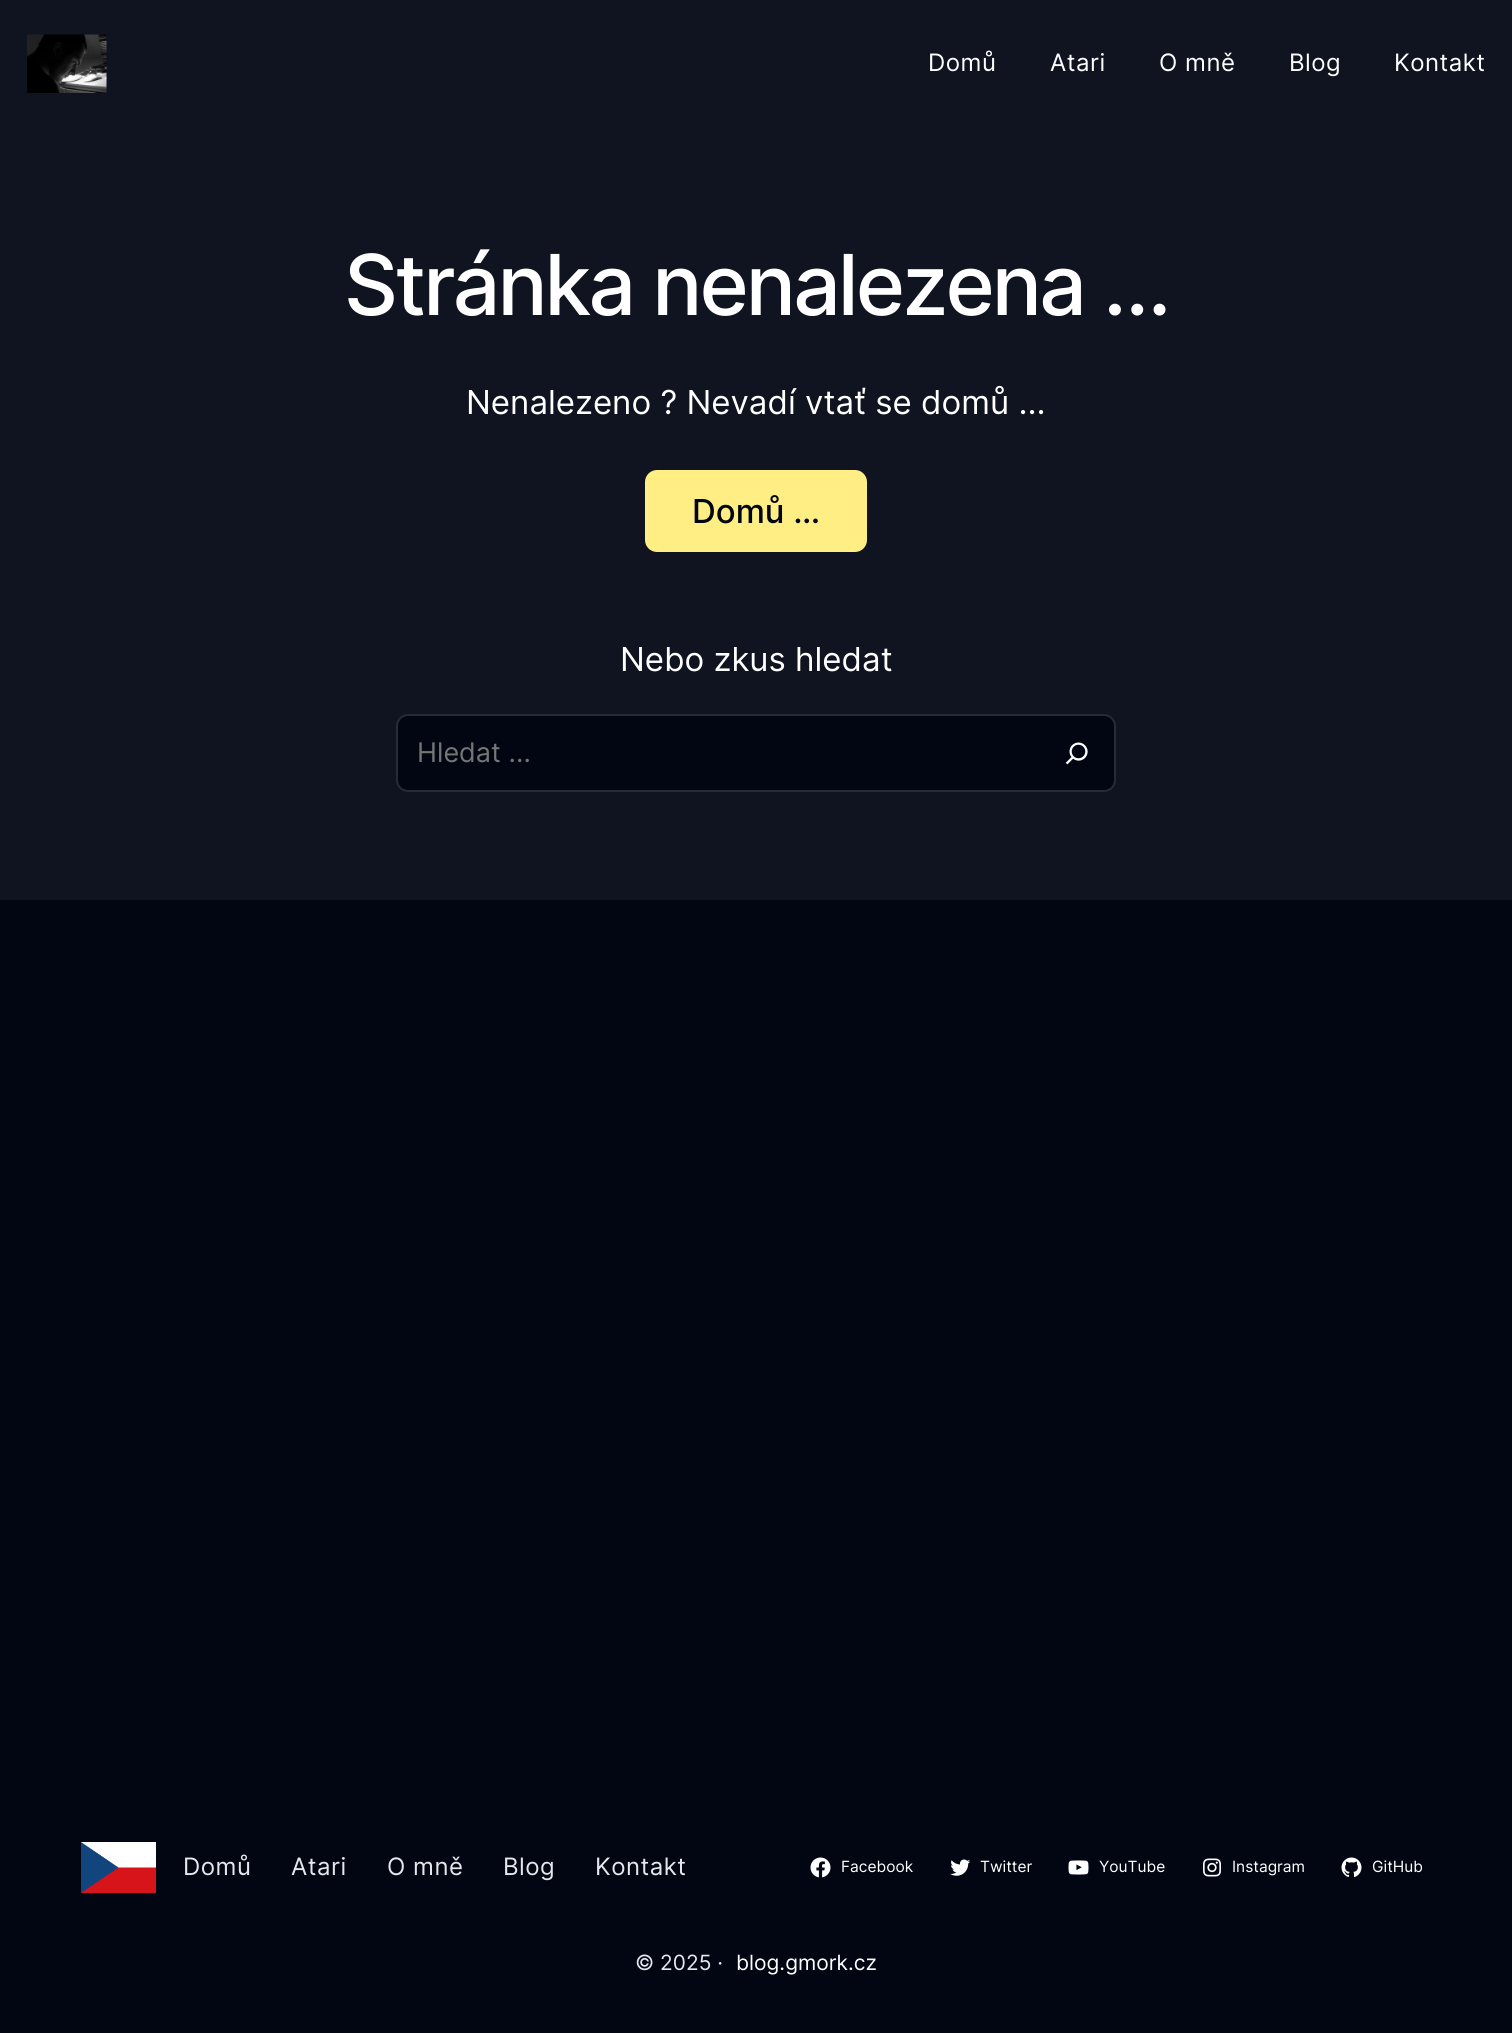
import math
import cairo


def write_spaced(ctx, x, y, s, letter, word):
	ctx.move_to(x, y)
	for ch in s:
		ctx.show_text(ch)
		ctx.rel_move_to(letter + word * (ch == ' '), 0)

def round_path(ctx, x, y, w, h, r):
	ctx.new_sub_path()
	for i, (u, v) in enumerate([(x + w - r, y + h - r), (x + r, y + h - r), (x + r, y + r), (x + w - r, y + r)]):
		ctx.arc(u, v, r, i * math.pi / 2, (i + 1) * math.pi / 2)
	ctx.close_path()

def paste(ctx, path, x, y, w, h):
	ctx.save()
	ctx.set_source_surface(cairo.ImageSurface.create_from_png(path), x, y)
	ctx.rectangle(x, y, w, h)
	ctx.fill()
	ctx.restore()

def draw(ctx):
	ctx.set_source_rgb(0.008, 0.027, 0.078)
	ctx.paint()
	ctx.set_source_rgb(0.063, 0.078, 0.125)
	ctx.rectangle(0, 0, 1512, 900)
	ctx.fill()
	paste(ctx, 'media/1.png', 27, 34, 80, 59)
	ctx.select_font_face('Inter')
	ctx.set_font_size(24)
	ctx.set_source_rgb(1, 1, 1)
	for x, y, s in [
		(928, 71, 'Domů'),
		(1050, 71, 'Atari'),
		(1159, 71, 'O mně'),
		(1289, 71, 'Blog'),
		(1394, 71, 'Kontakt'),
	]:
		write_spaced(ctx, x, y, s, 0.5, 0)
	ctx.select_font_face('Inter Medium')
	ctx.set_font_size(84)
	write_spaced(ctx, 344, 315, 'Stránka nenalezena …', -3, 0)
	ctx.select_font_face('Inter')
	ctx.set_font_size(33)
	ctx.move_to(466, 414)
	ctx.show_text('Nenalezeno ? Nevadí vtať se domů …')
	ctx.set_source_rgb(0.996, 0.933, 0.518)
	round_path(ctx, 645, 470, 222, 82, 12)
	ctx.fill()
	ctx.select_font_face('Inter Medium')
	ctx.set_source_rgb(0.008, 0.027, 0.078)
	ctx.move_to(692, 523)
	ctx.show_text('Domů …')
	ctx.select_font_face('Inter')
	ctx.set_source_rgb(1, 1, 1)
	ctx.move_to(620, 671)
	ctx.show_text('Nebo zkus hledat')
	ctx.set_source_rgb(0.008, 0.027, 0.078)
	round_path(ctx, 397, 715, 718, 76, 11)
	ctx.fill_preserve()
	ctx.set_source_rgb(0.157, 0.169, 0.2)
	ctx.stroke()
	ctx.set_font_size(27)
	ctx.set_source_rgb(0.459, 0.459, 0.459)
	ctx.move_to(417, 762)
	ctx.show_text('Hledat ...')
	paste(ctx, 'media/2.png', 1065, 742, 23, 23)
	paste(ctx, 'media/3.png', 81, 1842, 75, 51)
	ctx.set_font_size(24)
	ctx.set_source_rgb(0.898, 0.906, 0.922)
	for x, y, s in [
		(183, 1875, 'Domů'),
		(291, 1875, 'Atari'),
		(387, 1875, 'O mně'),
		(503, 1875, 'Blog'),
		(595, 1875, 'Kontakt'),
	]:
		write_spaced(ctx, x, y, s, 0.5, 0)
	paste(ctx, 'media/4.png', 810, 1857, 21, 21)
	ctx.set_font_size(15.5)
	ctx.set_source_rgb(1, 1, 1)
	ctx.move_to(841, 1872)
	ctx.show_text('Facebook')
	paste(ctx, 'media/5.png', 950, 1859, 21, 17)
	ctx.move_to(980, 1872)
	ctx.show_text('Twitter')
	paste(ctx, 'media/6.png', 1068, 1860, 21, 15)
	ctx.move_to(1099, 1872)
	ctx.show_text('YouTube')
	paste(ctx, 'media/7.png', 1203, 1858, 18, 19)
	ctx.move_to(1232, 1872)
	ctx.show_text('Instagram')
	paste(ctx, 'media/8.png', 1341, 1857, 21, 20)
	ctx.move_to(1372, 1872)
	ctx.show_text('GitHub')
	ctx.set_font_size(21)
	ctx.set_source_rgb(0.898, 0.906, 0.922)
	ctx.move_to(635, 1970)
	ctx.show_text('© 2025 ·')
	ctx.set_source_rgb(1, 1, 1)
	ctx.move_to(736, 1970)
	ctx.show_text('blog.gmork.cz')


surface = cairo.ImageSurface(cairo.FORMAT_RGB24, 1512, 2033)
ctx = cairo.Context(surface)
options = cairo.FontOptions()
options.set_hint_metrics(cairo.HINT_METRICS_OFF)
options.set_hint_style(cairo.HINT_STYLE_NONE)
ctx.set_font_options(options)
ctx.set_miter_limit(4)
draw(ctx)
surface.write_to_png('image.png')
